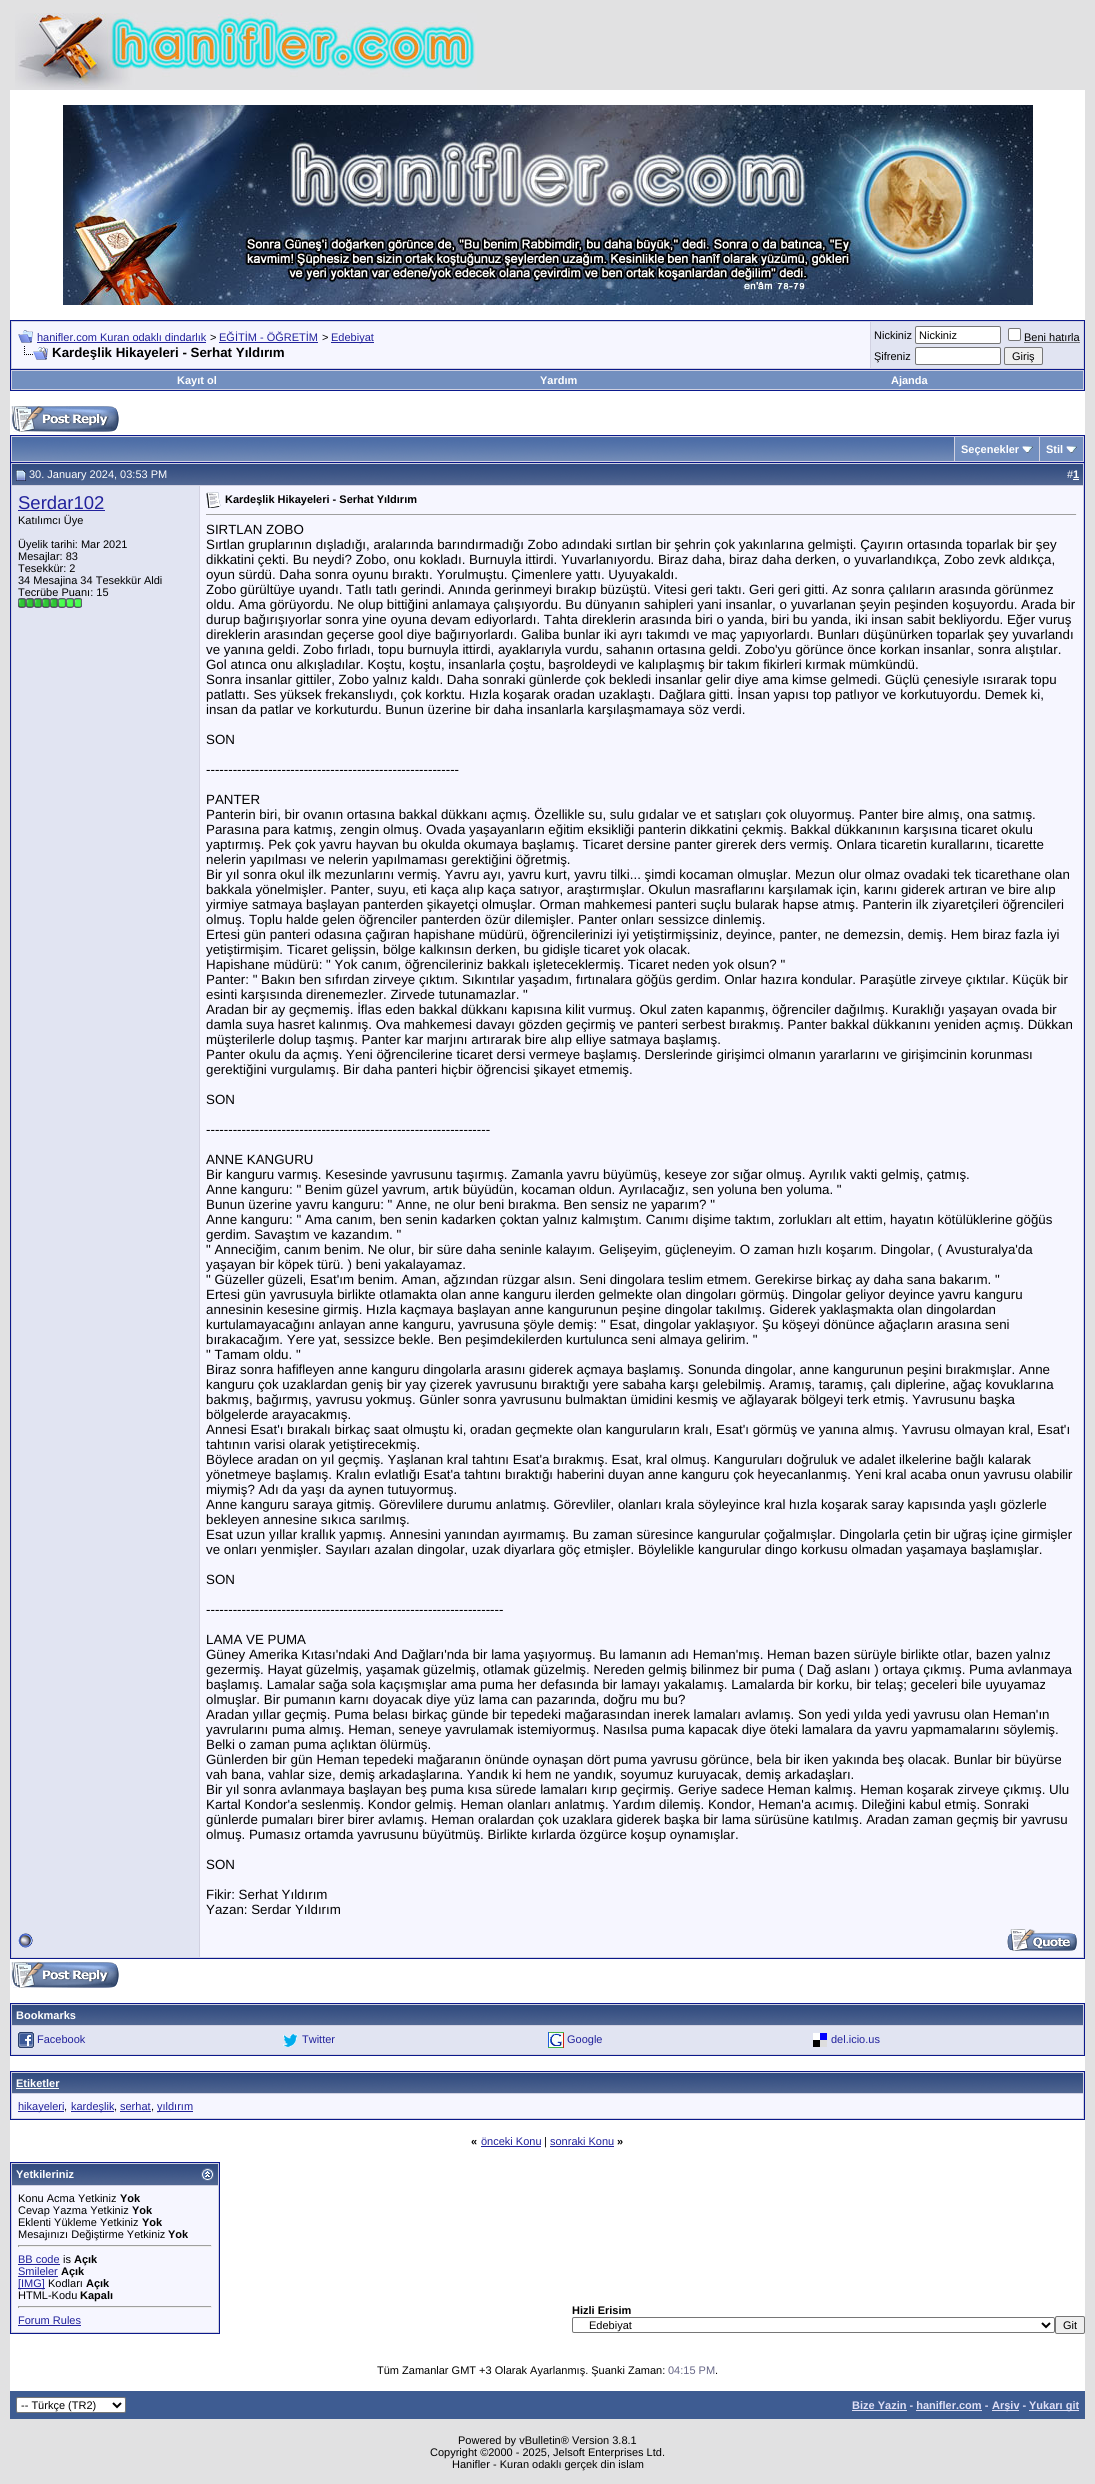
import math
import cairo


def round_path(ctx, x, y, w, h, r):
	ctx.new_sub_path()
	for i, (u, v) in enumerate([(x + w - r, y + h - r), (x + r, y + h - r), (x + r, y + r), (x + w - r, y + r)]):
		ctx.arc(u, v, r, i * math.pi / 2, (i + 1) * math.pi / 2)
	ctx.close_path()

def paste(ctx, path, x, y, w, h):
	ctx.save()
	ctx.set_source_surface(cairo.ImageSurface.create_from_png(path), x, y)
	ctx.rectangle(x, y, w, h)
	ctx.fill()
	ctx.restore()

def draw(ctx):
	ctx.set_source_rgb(0.882, 0.882, 0.886)
	ctx.paint()
	paste(ctx, 'media/1.png', 15, 13, 462, 77)
	ctx.set_source_rgb(1, 1, 1)
	ctx.rectangle(10, 90, 1075, 345)
	ctx.fill()
	paste(ctx, 'media/2.png', 63, 105, 970, 200)
	ctx.set_source_rgb(0.82, 0.82, 0.882)
	ctx.rectangle(10.5, 320.5, 1074, 49)
	ctx.fill_preserve()
	ctx.set_source_rgb(0.043, 0.098, 0.549)
	ctx.set_line_width(1)
	ctx.stroke()
	ctx.set_source_rgb(0.961, 0.961, 1)
	ctx.rectangle(12, 322, 858, 46)
	ctx.fill()
	paste(ctx, 'media/3.png', 18, 330, 15, 13)
	ctx.select_font_face('Liberation Sans')
	ctx.set_font_size(11)
	ctx.set_source_rgb(0.133, 0.133, 0.612)
	ctx.move_to(37, 341)
	ctx.show_text('hanifler.com Kuran odaklı dindarlık')
	ctx.rectangle(37, 342, 169, 1)
	ctx.fill()
	ctx.set_source_rgb(0, 0, 0)
	ctx.move_to(210, 341)
	ctx.show_text('>')
	ctx.set_source_rgb(0.133, 0.133, 0.612)
	ctx.move_to(219, 341)
	ctx.show_text('EĞİTİM - ÖĞRETİM')
	ctx.rectangle(219, 342, 99, 1)
	ctx.fill()
	ctx.set_source_rgb(0, 0, 0)
	ctx.move_to(322, 341)
	ctx.show_text('>')
	ctx.set_source_rgb(0.133, 0.133, 0.612)
	ctx.rectangle(331, 342, 43, 1)
	ctx.fill()
	ctx.move_to(331, 341)
	ctx.show_text('Edebiyat')
	paste(ctx, 'media/4.png', 24, 346, 24, 14)
	ctx.select_font_face('Liberation Sans', cairo.FONT_SLANT_NORMAL, cairo.FONT_WEIGHT_BOLD)
	ctx.set_font_size(13.33)
	ctx.set_source_rgb(0, 0, 0)
	ctx.move_to(52, 357)
	ctx.show_text('Kardeşlik Hikayeleri - Serhat Yıldırım')
	ctx.set_source_rgb(0.882, 0.894, 0.949)
	ctx.rectangle(871, 322, 212, 46)
	ctx.fill()
	ctx.select_font_face('Liberation Sans')
	ctx.set_font_size(11)
	ctx.set_source_rgb(0, 0, 0)
	ctx.move_to(874, 339)
	ctx.show_text('Nickiniz')
	ctx.set_source_rgb(1, 1, 1)
	round_path(ctx, 915.5, 326.5, 85, 17, 1.5)
	ctx.fill_preserve()
	ctx.set_source_rgb(0.463, 0.463, 0.463)
	ctx.stroke()
	ctx.set_source_rgb(0, 0, 0)
	ctx.move_to(919, 339)
	ctx.show_text('Nickiniz')
	ctx.set_source_rgb(1, 1, 1)
	round_path(ctx, 1008.5, 328.5, 12, 12, 1.5)
	ctx.fill_preserve()
	ctx.set_source_rgb(0.463, 0.463, 0.463)
	ctx.stroke()
	ctx.set_source_rgb(0, 0, 0)
	ctx.move_to(1024, 341)
	ctx.show_text('Beni hatırla')
	ctx.new_path()
	ctx.move_to(1024.5, 342.5)
	ctx.line_to(1080, 342.5)
	ctx.set_dash([1, 1])
	ctx.stroke()
	ctx.move_to(874, 360)
	ctx.show_text('Şifreniz')
	ctx.set_source_rgb(1, 1, 1)
	round_path(ctx, 915.5, 347.5, 85, 17, 1.5)
	ctx.fill_preserve()
	ctx.set_source_rgb(0.463, 0.463, 0.463)
	ctx.set_dash([])
	ctx.stroke()
	ctx.set_source_rgb(0.937, 0.937, 0.937)
	round_path(ctx, 1004.5, 347.5, 38, 17, 1.5)
	ctx.fill_preserve()
	ctx.set_source_rgb(0.463, 0.463, 0.463)
	ctx.stroke()
	ctx.set_source_rgb(0, 0, 0)
	ctx.move_to(1012, 360)
	ctx.show_text('Giriş')
	ctx.set_source_rgb(0.82, 0.82, 0.882)
	ctx.rectangle(11, 370, 1073, 20)
	ctx.fill()
	ctx.set_source_rgb(0.043, 0.098, 0.549)
	ctx.rectangle(1084, 370, 1, 21)
	ctx.rectangle(10, 390, 1075, 1)
	ctx.rectangle(10, 370, 1, 21)
	ctx.fill()
	ctx.set_source_rgb(0.451, 0.561, 0.749)
	ctx.rectangle(12, 371, 1071, 18)
	ctx.fill()
	ctx.select_font_face('Liberation Sans', cairo.FONT_SLANT_NORMAL, cairo.FONT_WEIGHT_BOLD)
	ctx.set_source_rgb(1, 1, 1)
	for x, y, s in [
		(177, 384, 'Kayıt ol'),
		(540, 384, 'Yardım'),
		(891, 384, 'Ajanda'),
	]:
		ctx.move_to(x, y)
		ctx.show_text(s)
	paste(ctx, 'media/5.png', 11, 406, 108, 26)
	ctx.set_source_rgb(0.82, 0.82, 0.882)
	ctx.rectangle(11, 436, 1073, 26)
	ctx.fill()
	ctx.set_source_rgb(0.043, 0.098, 0.549)
	ctx.rectangle(10, 435, 1075, 1)
	ctx.rectangle(1084, 435, 1, 27)
	ctx.rectangle(10, 435, 1, 27)
	ctx.fill()
	paste(ctx, 'media/6.png', 12, 437, 942, 24)
	ctx.set_source_rgb(0.451, 0.561, 0.749)
	ctx.rectangle(955, 437, 84, 24)
	ctx.fill()
	ctx.set_source_rgb(1, 1, 1)
	ctx.move_to(961, 453)
	ctx.show_text('Seçenekler')
	paste(ctx, 'media/7.png', 1022, 446, 11, 7)
	ctx.set_source_rgb(0.451, 0.561, 0.749)
	ctx.rectangle(1040, 437, 43, 24)
	ctx.fill()
	ctx.set_source_rgb(1, 1, 1)
	ctx.move_to(1046, 453)
	ctx.show_text('Stil')
	paste(ctx, 'media/7.png', 1066, 446, 11, 7)
	ctx.rectangle(10, 1959, 1075, 432)
	ctx.fill()
	ctx.rectangle(10.5, 462.5, 1074, 1496)
	ctx.set_source_rgb(0.043, 0.098, 0.549)
	ctx.stroke()
	paste(ctx, 'media/8.png', 12, 464, 188, 21)
	ctx.set_source_rgb(0.82, 0.82, 0.882)
	ctx.rectangle(11, 463, 1073, 1)
	ctx.rectangle(11, 485, 189, 1)
	ctx.rectangle(11, 463, 1, 1460)
	ctx.fill()
	paste(ctx, 'media/9.png', 16, 470, 10, 11)
	ctx.select_font_face('Liberation Sans')
	ctx.set_source_rgb(1, 1, 1)
	ctx.move_to(29, 478)
	ctx.show_text('30. January 2024, 03:53 PM')
	paste(ctx, 'media/10.png', 200, 464, 883, 21)
	ctx.set_source_rgb(0.82, 0.82, 0.882)
	ctx.rectangle(1083, 463, 1, 1495)
	ctx.fill()
	ctx.rectangle(200, 485, 884, 1)
	ctx.fill()
	ctx.set_source_rgb(1, 1, 1)
	ctx.move_to(1067, 478)
	ctx.show_text('#')
	ctx.select_font_face('Liberation Sans', cairo.FONT_SLANT_NORMAL, cairo.FONT_WEIGHT_BOLD)
	ctx.move_to(1073, 478)
	ctx.show_text('1')
	ctx.rectangle(1073, 479, 6, 1)
	ctx.fill()
	ctx.set_source_rgb(0.882, 0.894, 0.949)
	ctx.rectangle(12, 486, 187, 1471)
	ctx.fill()
	ctx.set_source_rgb(0.82, 0.82, 0.882)
	ctx.rectangle(199, 486, 1, 1472)
	ctx.fill()
	ctx.select_font_face('Liberation Sans')
	ctx.set_font_size(18.5)
	ctx.set_source_rgb(0.133, 0.133, 0.612)
	ctx.move_to(18, 509)
	ctx.show_text('Serdar102')
	ctx.rectangle(18, 510, 87, 1)
	ctx.fill()
	ctx.set_font_size(11)
	ctx.set_source_rgb(0, 0, 0)
	for x, y, s in [
		(18, 524, 'Katılımcı Üye'),
		(18, 548, 'Üyelik tarihi: Mar 2021'),
		(18, 560, 'Mesajlar: 83'),
		(18, 572, 'Tesekkür: 2'),
		(18, 584, '34 Mesajina 34 Tesekkür Aldi'),
		(18, 596, 'Tecrübe Puanı: 15'),
	]:
		ctx.move_to(x, y)
		ctx.show_text(s)
	paste(ctx, 'media/11.png', 18, 598, 8, 10)
	paste(ctx, 'media/11.png', 26, 598, 8, 10)
	paste(ctx, 'media/11.png', 34, 598, 8, 10)
	paste(ctx, 'media/11.png', 42, 598, 8, 10)
	paste(ctx, 'media/11.png', 50, 598, 8, 10)
	paste(ctx, 'media/12.png', 58, 598, 8, 10)
	paste(ctx, 'media/12.png', 66, 598, 8, 10)
	paste(ctx, 'media/12.png', 74, 598, 8, 10)
	ctx.set_source_rgb(0.961, 0.961, 1)
	ctx.rectangle(200, 486, 883, 1471)
	ctx.fill()
	paste(ctx, 'media/13.png', 206, 492, 15, 16)
	ctx.select_font_face('Liberation Sans', cairo.FONT_SLANT_NORMAL, cairo.FONT_WEIGHT_BOLD)
	ctx.set_source_rgb(0, 0, 0)
	ctx.move_to(225, 503)
	ctx.show_text('Kardeşlik Hikayeleri - Serhat Yıldırım')
	ctx.set_source_rgb(0.624, 0.624, 0.624)
	ctx.rectangle(206, 514, 871, 1)
	ctx.fill()
	ctx.set_source_rgb(0.933, 0.933, 0.933)
	ctx.rectangle(1076, 514, 1, 1)
	ctx.fill()
	ctx.select_font_face('Liberation Sans')
	ctx.set_font_size(13.33)
	ctx.set_source_rgb(0, 0, 0)
	for x, y, s in [
		(206, 534, 'SIRTLAN ZOBO'),
		(206, 549, 'Sırtlan gruplarının dışladığı, aralarında barındırmadığı Zobo adındaki sırtlan bir şehrin çok yakınlarına gelmişti. Çayırın ortasında toparlak bir şey'),
		(206, 564, 'dikkatini çekti. Bu neydi? Zobo, onu kokladı. Burnuyla ittirdi. Yuvarlanıyordu. Biraz daha, biraz daha derken, o yuvarlandıkça, Zobo zevk aldıkça,'),
		(206, 579, 'oyun sürdü. Daha sonra oyunu bıraktı. Yorulmuştu. Çimenlere yattı. Uyuyakaldı.'),
		(206, 594, 'Zobo gürültüye uyandı. Tatlı tatlı gerindi. Anında gerinmeyi bırakıp büzüştü. Vitesi geri taktı. Geri geri gitti. Az sonra çalıların arasında görünmez'),
		(206, 609, 'oldu. Ama görüyordu. Ne olup bittiğini anlamaya çalışıyordu. Bu dünyanın sahipleri yani insanlar, o yuvarlanan şeyin peşinden koşuyordu. Arada bir'),
		(206, 624, 'durup bağırışıyorlar sonra yine oyuna devam ediyorlardı. Tahta direklerin arasında biri o yanda, biri bu yanda, iki insan sabit bekliyordu. Eğer vuruş'),
		(206, 639, 'direklerin arasından geçerse gool diye bağırıyorlardı. Galiba bunlar iki ayrı takımdı ve maç yapıyorlardı. Bunları düşünürken toparlak şey yuvarlandı'),
		(206, 654, 've yanına geldi. Zobo fırladı, topu burnuyla ittirdi, ayaklarıyla vurdu, sahanın ortasına geldi. Zobo\'yu görünce önce korkan insanlar, sonra alıştılar.'),
		(206, 669, 'Gol atınca onu alkışladılar. Koştu, koştu, insanlarla çoştu, başroldeydi ve kalıplaşmış bir takım fikirleri kırmak mümkündü.'),
		(206, 684, 'Sonra insanlar gittiler, Zobo yalnız kaldı. Daha sonraki günlerde çok bekledi insanlar gelir diye ama kimse gelmedi. Güçlü çenesiyle ısırarak topu'),
		(206, 699, 'patlattı. Ses yüksek frekanslıydı, çok korktu. Hızla koşarak oradan uzaklaştı. Dağlara gitti. İnsan yapısı top patlıyor ve korkutuyordu. Demek ki,'),
		(206, 714, 'insan da patlar ve korkuturdu. Bunun üzerine bir daha insanlarla karşılaşmamaya söz verdi.'),
		(206, 744, 'SON'),
		(206, 774, '---------------------------------------------------------'),
		(206, 804, 'PANTER'),
		(206, 819, 'Panterin biri, bir ovanın ortasına bakkal dükkanı açmış. Özellikle su, sulu gıdalar ve et satışları çok oluyormuş. Panter bire almış, ona satmış.'),
		(206, 834, 'Parasına para katmış, zengin olmuş. Ovada yaşayanların eğitim eksikliği panterin dikkatini çekmiş. Bakkal dükkanının karşısına ticaret okulu'),
		(206, 849, 'yaptırmış. Pek çok yavru hayvan bu okulda okumaya başlamış. Ticaret dersine panter girerek ders vermiş. Onlara ticaretin kurallarını, ticarette'),
		(206, 864, 'nelerin yapılması ve nelerin yapılmaması gerektiğini öğretmiş.'),
		(206, 879, 'Bir yıl sonra okul ilk mezunlarını vermiş. Yavru ayı, yavru kurt, yavru tilki... şimdi kocaman olmuşlar. Mezun olur olmaz ovadaki tek ticarethane olan'),
		(206, 894, 'bakkala yönelmişler. Panter, suyu, eti kaça alıp kaça satıyor, araştırmışlar. Okulun masraflarını karşılamak için, karını giderek artıran ve bire alıp'),
		(206, 909, 'yirmiye satmaya başlayan panterden şikayetçi olmuşlar. Orman mahkemesi panteri suçlu bularak hapse atmış. Panterin ilk ziyaretçileri öğrencileri'),
		(206, 924, 'olmuş. Toplu halde gelen öğrenciler panterden özür dilemişler. Panter onları sessizce dinlemiş.'),
		(206, 939, 'Ertesi gün panteri odasına çağıran hapishane müdürü, öğrencilerinizi iyi yetiştirmişsiniz, deyince, panter, ne demezsin, demiş. Hem biraz fazla iyi'),
		(206, 954, 'yetiştirmişim. Ticaret gelişsin, bölge kalkınsın derken, bu gidişle ticaret yok olacak.'),
		(206, 969, 'Hapishane müdürü: " Yok canım, öğrencileriniz bakkalı işleteceklermiş. Ticaret neden yok olsun? "'),
		(206, 984, 'Panter: " Bakın ben sıfırdan zirveye çıktım. Sıkıntılar yaşadım, fırtınalara göğüs gerdim. Onlar hazıra kondular. Paraşütle zirveye çıktılar. Küçük bir'),
		(206, 999, 'esinti karşısında direnemezler. Zirvede tutunamazlar. "'),
		(206, 1014, 'Aradan bir ay geçmemiş. İflas eden bakkal dükkanı kapısına kilit vurmuş. Okul zaten kapanmış, öğrenciler dağılmış. Kuraklığı yaşayan ovada bir'),
		(206, 1029, 'damla suya hasret kalınmış. Ova mahkemesi davayı gözden geçirmiş ve panteri serbest bırakmış. Panter bakkal dükkanını yeniden açmış. Dükkan'),
		(206, 1044, 'müşterilerle dolup taşmış. Panter kar marjını artırarak bire alıp elliye satmaya başlamış.'),
		(206, 1059, 'Panter okulu da açmış. Yeni öğrencilerine ticaret dersi vermeye başlamış. Derslerinde girişimci olmanın yararlarını ve girişimcinin korunması'),
		(206, 1074, 'gerektiğini vurgulamış. Bir daha panteri hiçbir öğrencisi şikayet etmemiş.'),
		(206, 1104, 'SON'),
		(206, 1134, '----------------------------------------------------------------'),
		(206, 1164, 'ANNE KANGURU'),
		(206, 1179, 'Bir kanguru varmış. Kesesinde yavrusunu taşırmış. Zamanla yavru büyümüş, keseye zor sığar olmuş. Ayrılık vakti gelmiş, çatmış.'),
		(206, 1194, 'Anne kanguru: " Benim güzel yavrum, artık büyüdün, kocaman oldun. Ayrılacağız, sen yoluna ben yoluma. "'),
		(206, 1209, 'Bunun üzerine yavru kanguru: " Anne, ne olur beni bırakma. Ben sensiz ne yaparım? "'),
		(206, 1224, 'Anne kanguru: " Ama canım, ben senin kadarken çoktan yalnız kalmıştım. Canımı dişime taktım, zorlukları alt ettim, hayatın kötülüklerine göğüs'),
		(206, 1239, 'gerdim. Savaştım ve kazandım. "'),
		(206, 1254, '" Anneciğim, canım benim. Ne olur, bir süre daha seninle kalayım. Gelişeyim, güçleneyim. O zaman hızlı koşarım. Dingolar, ( Avusturalya\'da'),
		(206, 1269, 'yaşayan bir köpek türü. ) beni yakalayamaz.'),
		(206, 1284, '" Güzeller güzeli, Esat\'ım benim. Aman, ağzından rüzgar alsın. Seni dingolara teslim etmem. Gerekirse birkaç ay daha sana bakarım. "'),
		(206, 1299, 'Ertesi gün yavrusuyla birlikte otlamakta olan anne kanguru ilerden gelmekte olan dingoları görmüş. Dingolar geliyor deyince yavru kanguru'),
		(206, 1314, 'annesinin kesesine girmiş. Hızla kaçmaya başlayan anne kangurunun peşine dingolar takılmış. Giderek yaklaşmakta olan dingolardan'),
		(206, 1329, 'kurtulamayacağını anlayan anne kanguru, yavrusuna şöyle demiş: " Esat, dingolar yaklaşıyor. Şu köşeyi dönünce ağaçların arasına seni'),
		(206, 1344, 'bırakacağım. Yere yat, sessizce bekle. Ben peşimdekilerden kurtulunca seni almaya gelirim. "'),
		(206, 1359, '" Tamam oldu. "'),
		(206, 1374, 'Biraz sonra hafifleyen anne kanguru dingolarla arasını giderek açmaya başlamış. Sonunda dingolar, anne kangurunun peşini bırakmışlar. Anne'),
		(206, 1389, 'kanguru çok uzaklardan geniş bir yay çizerek yavrusunu bıraktığı yere sabaha karşı gelebilmiş. Aramış, taramış, çalı diplerine, ağaç kovuklarına'),
		(206, 1404, 'bakmış, bağırmış, yavrusu yokmuş. Günler sonra yavrusunu bulmaktan ümidini kesmiş ve ağlayarak bölgeyi terk etmiş. Yavrusunu başka'),
		(206, 1419, 'bölgelerde arayacakmış.'),
		(206, 1434, 'Annesi Esat\'ı bırakalı birkaç saat olmuştu ki, oradan geçmekte olan kanguruların kralı, Esat\'ı görmüş ve yanına almış. Yavrusu olmayan kral, Esat\'ı'),
		(206, 1449, 'tahtının varisi olarak yetiştirecekmiş.'),
		(206, 1464, 'Böylece aradan on yıl geçmiş. Yaşlanan kral tahtını Esat\'a bırakmış. Esat, kral olmuş. Kanguruları doğruluk ve adalet ilkelerine bağlı kalarak'),
		(206, 1479, 'yönetmeye başlamış. Kralın evlatlığı Esat\'a tahtını bıraktığı haberini duyan anne kanguru çok heyecanlanmış. Yeni kral acaba onun yavrusu olabilir'),
		(206, 1494, 'miymiş? Adı da yaşı da aynen tutuyormuş.'),
		(206, 1509, 'Anne kanguru saraya gitmiş. Görevlilere durumu anlatmış. Görevliler, olanları krala söyleyince kral hızla koşarak saray kapısında yaşlı gözlerle'),
		(206, 1524, 'bekleyen annesine sıkıca sarılmış.'),
		(206, 1539, 'Esat uzun yıllar krallık yapmış. Annesini yanından ayırmamış. Bu zaman süresince kangurular çoğalmışlar. Dingolarla çetin bir uğraş içine girmişler'),
		(206, 1554, 've onları yenmişler. Sayıları azalan dingolar, uzak diyarlara göç etmişler. Böylelikle kangurular dingo korkusu olmadan yaşamaya başlamışlar.'),
		(206, 1584, 'SON'),
		(206, 1614, '-------------------------------------------------------------------'),
		(206, 1644, 'LAMA VE PUMA'),
		(206, 1659, 'Güney Amerika Kıtası\'ndaki And Dağları\'nda bir lama yaşıyormuş. Bu lamanın adı Heman\'mış. Heman bazen sürüyle birlikte otlar, bazen yalnız'),
		(206, 1674, 'gezermiş. Hayat güzelmiş, yaşamak güzelmiş, otlamak güzelmiş. Nereden gelmiş bilinmez bir puma ( Dağ aslanı ) ortaya çıkmış. Puma avlanmaya'),
		(206, 1689, 'başlamış. Lamalar sağa sola kaçışmışlar ama puma her defasında bir lamayı yakalamış. Lamalarda bir korku, bir telaş; geceleri bile uyuyamaz'),
		(206, 1704, 'olmuşlar. Bir pumanın karnı doyacak diye yüz lama can pazarında, doğru mu bu?'),
		(206, 1719, 'Aradan yıllar geçmiş. Puma belası birkaç günde bir tepedeki mağarasından inerek lamaları avlamış. Son yedi yılda yedi yavrusu olan Heman\'ın'),
		(206, 1734, 'yavrularını puma almış. Heman, seneye yavrulamak istemiyormuş. Nasılsa puma kapacak diye öteki lamalara da yavru yapmamalarını söylemiş.'),
		(206, 1749, 'Belki o zaman puma açlıktan ölürmüş.'),
		(206, 1764, 'Günlerden bir gün Heman tepedeki mağaranın önünde oynaşan dört puma yavrusu görünce, bela bir iken yakında beş olacak. Bunlar bir büyürse'),
		(206, 1779, 'vah bana, vahlar size, demiş arkadaşlarına. Yandık ki hem ne yandık, soyumuz kuruyacak, demiş arkadaşları.'),
		(206, 1794, 'Bir yıl sonra avlanmaya başlayan beş puma kısa sürede lamaları kırıp geçirmiş. Geriye sadece Heman kalmış. Heman koşarak zirveye çıkmış. Ulu'),
		(206, 1809, 'Kartal Kondor\'a seslenmiş. Kondor gelmiş. Heman olanları anlatmış. Yardım dilemiş. Kondor, Heman\'a acımış. Dileğini kabul etmiş. Sonraki'),
		(206, 1824, 'günlerde pumaları birer birer avlamış. Heman oralardan çok uzaklara giderek başka bir lama sürüsüne katılmış. Aradan zaman geçmiş bir yavrusu'),
		(206, 1839, 'olmuş. Pumasız ortamda yavrusunu büyütmüş. Birlikte kırlarda özgürce koşup oynamışlar.'),
		(206, 1869, 'SON'),
		(206, 1899, 'Fikir: Serhat Yıldırım'),
		(206, 1914, 'Yazan: Serdar Yıldırım'),
	]:
		ctx.move_to(x, y)
		ctx.show_text(s)
	ctx.set_source_rgb(0.82, 0.82, 0.882)
	ctx.rectangle(11, 1957, 1073, 1)
	ctx.fill()
	ctx.rectangle(11, 1923, 1, 35)
	ctx.fill()
	paste(ctx, 'media/14.png', 18, 1933, 15, 15)
	paste(ctx, 'media/15.png', 1007, 1929, 70, 22)
	paste(ctx, 'media/5.png', 11, 1962, 108, 26)
	ctx.rectangle(10.5, 2003.5, 1074, 52)
	ctx.fill_preserve()
	ctx.set_source_rgb(0.043, 0.098, 0.549)
	ctx.stroke()
	paste(ctx, 'media/16.png', 12, 2005, 1071, 20)
	ctx.select_font_face('Liberation Sans', cairo.FONT_SLANT_NORMAL, cairo.FONT_WEIGHT_BOLD)
	ctx.set_font_size(11)
	ctx.set_source_rgb(1, 1, 1)
	ctx.move_to(16, 2019)
	ctx.show_text('Bookmarks')
	ctx.set_source_rgb(0.882, 0.894, 0.949)
	ctx.rectangle(12, 2026, 1071, 28)
	ctx.fill()
	paste(ctx, 'media/17.png', 18, 2032, 16, 16)
	ctx.select_font_face('Liberation Sans')
	ctx.set_source_rgb(0.133, 0.133, 0.612)
	ctx.move_to(37, 2043)
	ctx.show_text('Facebook')
	paste(ctx, 'media/18.png', 283, 2034, 15, 13)
	ctx.move_to(302, 2043)
	ctx.show_text('Twitter')
	paste(ctx, 'media/19.png', 548, 2032, 16, 16)
	ctx.move_to(567, 2043)
	ctx.show_text('Google')
	paste(ctx, 'media/20.png', 813, 2033, 14, 14)
	ctx.move_to(831, 2043)
	ctx.show_text('del.icio.us')
	ctx.set_source_rgb(0.82, 0.82, 0.882)
	ctx.rectangle(10.5, 2071.5, 1074, 48)
	ctx.fill_preserve()
	ctx.set_source_rgb(0.043, 0.098, 0.549)
	ctx.stroke()
	paste(ctx, 'media/16.png', 12, 2073, 1071, 20)
	ctx.select_font_face('Liberation Sans', cairo.FONT_SLANT_NORMAL, cairo.FONT_WEIGHT_BOLD)
	ctx.set_source_rgb(1, 1, 1)
	ctx.move_to(16, 2087)
	ctx.show_text('Etiketler')
	ctx.rectangle(16, 2088, 43, 1)
	ctx.fill()
	ctx.set_source_rgb(0.961, 0.961, 1)
	ctx.rectangle(12, 2094, 1071, 24)
	ctx.fill()
	ctx.set_source_rgb(0.133, 0.133, 0.612)
	ctx.rectangle(18, 2111, 46, 1)
	ctx.fill()
	ctx.select_font_face('Liberation Sans')
	ctx.move_to(18, 2110)
	ctx.show_text('hikayeleri')
	ctx.set_source_rgb(0, 0, 0)
	ctx.move_to(64, 2110)
	ctx.show_text(',')
	ctx.set_source_rgb(0.133, 0.133, 0.612)
	ctx.rectangle(71, 2111, 43, 1)
	ctx.fill()
	ctx.move_to(71, 2110)
	ctx.show_text('kardeşlik')
	ctx.set_source_rgb(0, 0, 0)
	ctx.move_to(114, 2110)
	ctx.show_text(',')
	ctx.set_source_rgb(0.133, 0.133, 0.612)
	ctx.move_to(120, 2110)
	ctx.show_text('serhat')
	ctx.rectangle(120, 2111, 31, 1)
	ctx.fill()
	ctx.set_source_rgb(0, 0, 0)
	ctx.move_to(151, 2110)
	ctx.show_text(',')
	ctx.set_source_rgb(0.133, 0.133, 0.612)
	ctx.rectangle(157, 2111, 36, 1)
	ctx.fill()
	ctx.move_to(157, 2110)
	ctx.show_text('yıldırım')
	ctx.select_font_face('Liberation Sans', cairo.FONT_SLANT_NORMAL, cairo.FONT_WEIGHT_BOLD)
	ctx.set_source_rgb(0, 0, 0)
	ctx.move_to(471, 2145)
	ctx.show_text('«')
	ctx.select_font_face('Liberation Sans')
	ctx.set_source_rgb(0.133, 0.133, 0.612)
	ctx.move_to(481, 2145)
	ctx.show_text('önceki Konu')
	ctx.rectangle(481, 2146, 60, 1)
	ctx.fill()
	ctx.set_source_rgb(0, 0, 0)
	ctx.move_to(544, 2145)
	ctx.show_text('|')
	ctx.set_source_rgb(0.133, 0.133, 0.612)
	ctx.move_to(550, 2145)
	ctx.show_text('sonraki Konu')
	ctx.rectangle(550, 2146, 64, 1)
	ctx.fill()
	ctx.select_font_face('Liberation Sans', cairo.FONT_SLANT_NORMAL, cairo.FONT_WEIGHT_BOLD)
	ctx.set_source_rgb(0, 0, 0)
	ctx.move_to(617, 2145)
	ctx.show_text('»')
	ctx.set_source_rgb(0.82, 0.82, 0.882)
	ctx.rectangle(10.5, 2162.5, 209, 171)
	ctx.fill_preserve()
	ctx.set_source_rgb(0.043, 0.098, 0.549)
	ctx.stroke()
	paste(ctx, 'media/21.png', 12, 2164, 206, 21)
	ctx.set_source_rgb(1, 1, 1)
	ctx.move_to(16, 2178)
	ctx.show_text('Yetkileriniz')
	paste(ctx, 'media/22.png', 201, 2168, 13, 13)
	ctx.set_source_rgb(0.961, 0.961, 1)
	ctx.rectangle(12, 2186, 206, 146)
	ctx.fill()
	ctx.select_font_face('Liberation Sans')
	ctx.set_source_rgb(0, 0, 0)
	ctx.move_to(18, 2202)
	ctx.show_text('Konu Acma Yetkiniz')
	ctx.select_font_face('Liberation Sans', cairo.FONT_SLANT_NORMAL, cairo.FONT_WEIGHT_BOLD)
	ctx.move_to(120, 2202)
	ctx.show_text('Yok')
	ctx.select_font_face('Liberation Sans')
	ctx.move_to(18, 2214)
	ctx.show_text('Cevap Yazma Yetkiniz')
	ctx.select_font_face('Liberation Sans', cairo.FONT_SLANT_NORMAL, cairo.FONT_WEIGHT_BOLD)
	ctx.move_to(132, 2214)
	ctx.show_text('Yok')
	ctx.select_font_face('Liberation Sans')
	ctx.move_to(18, 2226)
	ctx.show_text('Eklenti Yükleme Yetkiniz')
	ctx.select_font_face('Liberation Sans', cairo.FONT_SLANT_NORMAL, cairo.FONT_WEIGHT_BOLD)
	ctx.move_to(142, 2226)
	ctx.show_text('Yok')
	ctx.select_font_face('Liberation Sans')
	ctx.move_to(18, 2238)
	ctx.show_text('Mesajınızı Değiştirme Yetkiniz')
	ctx.select_font_face('Liberation Sans', cairo.FONT_SLANT_NORMAL, cairo.FONT_WEIGHT_BOLD)
	ctx.move_to(168, 2238)
	ctx.show_text('Yok')
	ctx.set_source_rgb(0.624, 0.624, 0.624)
	ctx.rectangle(18, 2245, 194, 1)
	ctx.fill()
	ctx.set_source_rgb(0.933, 0.933, 0.933)
	ctx.rectangle(211, 2245, 1, 2)
	ctx.rectangle(18, 2246, 194, 1)
	ctx.fill()
	ctx.set_source_rgb(0.624, 0.624, 0.624)
	ctx.rectangle(18, 2245, 1, 2)
	ctx.fill()
	ctx.select_font_face('Liberation Sans')
	ctx.set_source_rgb(0.133, 0.133, 0.612)
	ctx.move_to(18, 2263)
	ctx.show_text('BB code')
	ctx.rectangle(18, 2264, 42, 1)
	ctx.fill()
	ctx.set_source_rgb(0, 0, 0)
	ctx.move_to(63, 2263)
	ctx.show_text('is')
	ctx.select_font_face('Liberation Sans', cairo.FONT_SLANT_NORMAL, cairo.FONT_WEIGHT_BOLD)
	ctx.move_to(74, 2263)
	ctx.show_text('Açık')
	ctx.select_font_face('Liberation Sans')
	ctx.set_source_rgb(0.133, 0.133, 0.612)
	ctx.move_to(18, 2275)
	ctx.show_text('Smileler')
	ctx.rectangle(18, 2276, 40, 1)
	ctx.fill()
	ctx.select_font_face('Liberation Sans', cairo.FONT_SLANT_NORMAL, cairo.FONT_WEIGHT_BOLD)
	ctx.set_source_rgb(0, 0, 0)
	ctx.move_to(61, 2275)
	ctx.show_text('Açık')
	ctx.set_source_rgb(0.133, 0.133, 0.612)
	ctx.rectangle(18, 2288, 27, 1)
	ctx.fill()
	ctx.select_font_face('Liberation Sans')
	ctx.move_to(18, 2287)
	ctx.show_text('[IMG]')
	ctx.set_source_rgb(0, 0, 0)
	ctx.move_to(48, 2287)
	ctx.show_text('Kodları')
	ctx.select_font_face('Liberation Sans', cairo.FONT_SLANT_NORMAL, cairo.FONT_WEIGHT_BOLD)
	ctx.move_to(86, 2287)
	ctx.show_text('Açık')
	ctx.select_font_face('Liberation Sans')
	ctx.move_to(18, 2299)
	ctx.show_text('HTML-Kodu')
	ctx.select_font_face('Liberation Sans', cairo.FONT_SLANT_NORMAL, cairo.FONT_WEIGHT_BOLD)
	ctx.move_to(80, 2299)
	ctx.show_text('Kapalı')
	ctx.set_source_rgb(0.624, 0.624, 0.624)
	ctx.rectangle(18, 2306, 194, 1)
	ctx.fill()
	ctx.set_source_rgb(0.933, 0.933, 0.933)
	ctx.rectangle(211, 2306, 1, 2)
	ctx.rectangle(18, 2307, 194, 1)
	ctx.fill()
	ctx.set_source_rgb(0.624, 0.624, 0.624)
	ctx.rectangle(18, 2306, 1, 2)
	ctx.fill()
	ctx.select_font_face('Liberation Sans')
	ctx.set_source_rgb(0.133, 0.133, 0.612)
	ctx.move_to(18, 2324)
	ctx.show_text('Forum Rules')
	ctx.rectangle(18, 2325, 63, 1)
	ctx.fill()
	ctx.select_font_face('Liberation Sans', cairo.FONT_SLANT_NORMAL, cairo.FONT_WEIGHT_BOLD)
	ctx.set_source_rgb(0, 0, 0)
	ctx.move_to(572, 2314)
	ctx.show_text('Hizli Erisim')
	round_path(ctx, 572.5, 2317.5, 482, 15, 1.5)
	ctx.set_source_rgb(0.463, 0.463, 0.463)
	ctx.stroke()
	ctx.new_path()
	ctx.move_to(1042, 2323)
	ctx.line_to(1046, 2327)
	ctx.line_to(1050, 2323)
	ctx.set_source_rgb(0, 0, 0)
	ctx.set_line_width(2)
	ctx.stroke()
	ctx.select_font_face('Liberation Sans')
	ctx.move_to(589, 2329)
	ctx.show_text('Edebiyat')
	ctx.set_source_rgb(0.937, 0.937, 0.937)
	round_path(ctx, 1055.5, 2316.5, 29, 17, 1.5)
	ctx.fill_preserve()
	ctx.set_source_rgb(0.463, 0.463, 0.463)
	ctx.set_line_width(1)
	ctx.stroke()
	ctx.set_source_rgb(0, 0, 0)
	ctx.move_to(1063, 2329)
	ctx.show_text('Git')
	ctx.move_to(377, 2374)
	ctx.show_text('Tüm Zamanlar GMT +3 Olarak Ayarlanmış. Şuanki Zaman:')
	ctx.set_source_rgb(0.4, 0.4, 0.525)
	ctx.move_to(668, 2374)
	ctx.show_text('04:15 PM')
	ctx.set_source_rgb(0, 0, 0)
	ctx.move_to(715, 2374)
	ctx.show_text('.')
	ctx.set_source_rgb(0.243, 0.361, 0.573)
	ctx.rectangle(10, 2391, 1075, 28)
	ctx.fill()
	ctx.set_source_rgb(1, 1, 1)
	round_path(ctx, 16.5, 2397.5, 109, 15, 1.5)
	ctx.fill_preserve()
	ctx.set_source_rgb(0.463, 0.463, 0.463)
	ctx.stroke()
	ctx.new_path()
	ctx.move_to(113, 2403)
	ctx.line_to(117, 2407)
	ctx.line_to(121, 2403)
	ctx.set_source_rgb(0, 0, 0)
	ctx.set_line_width(2)
	ctx.stroke()
	ctx.move_to(21, 2409)
	ctx.show_text('-- Türkçe (TR2)')
	ctx.select_font_face('Liberation Sans', cairo.FONT_SLANT_NORMAL, cairo.FONT_WEIGHT_BOLD)
	ctx.set_source_rgb(0.878, 0.878, 0.965)
	ctx.move_to(852, 2409)
	ctx.show_text('Bize Yazin - hanifler.com -')
	ctx.rectangle(852, 2410, 55, 1)
	ctx.rectangle(916, 2410, 66, 1)
	ctx.rectangle(992, 2410, 27, 1)
	ctx.fill()
	ctx.move_to(992, 2409)
	ctx.show_text('Arşiv -')
	ctx.rectangle(1029, 2410, 50, 1)
	ctx.fill()
	ctx.move_to(1029, 2409)
	ctx.show_text('Yukarı git')
	ctx.select_font_face('Liberation Sans')
	ctx.set_source_rgb(0, 0, 0)
	for x, y, s in [
		(458, 2444, 'Powered by vBulletin® Version 3.8.1'),
		(430, 2456, 'Copyright ©2000 - 2025, Jelsoft Enterprises Ltd.'),
		(452, 2468, 'Hanifler - Kuran odaklı gerçek din islam'),
	]:
		ctx.move_to(x, y)
		ctx.show_text(s)


surface = cairo.ImageSurface(cairo.FORMAT_RGB24, 1095, 2484)
ctx = cairo.Context(surface)
options = cairo.FontOptions()
options.set_hint_metrics(cairo.HINT_METRICS_OFF)
options.set_hint_style(cairo.HINT_STYLE_NONE)
ctx.set_font_options(options)
ctx.set_miter_limit(4)
draw(ctx)
surface.write_to_png('image.png')
